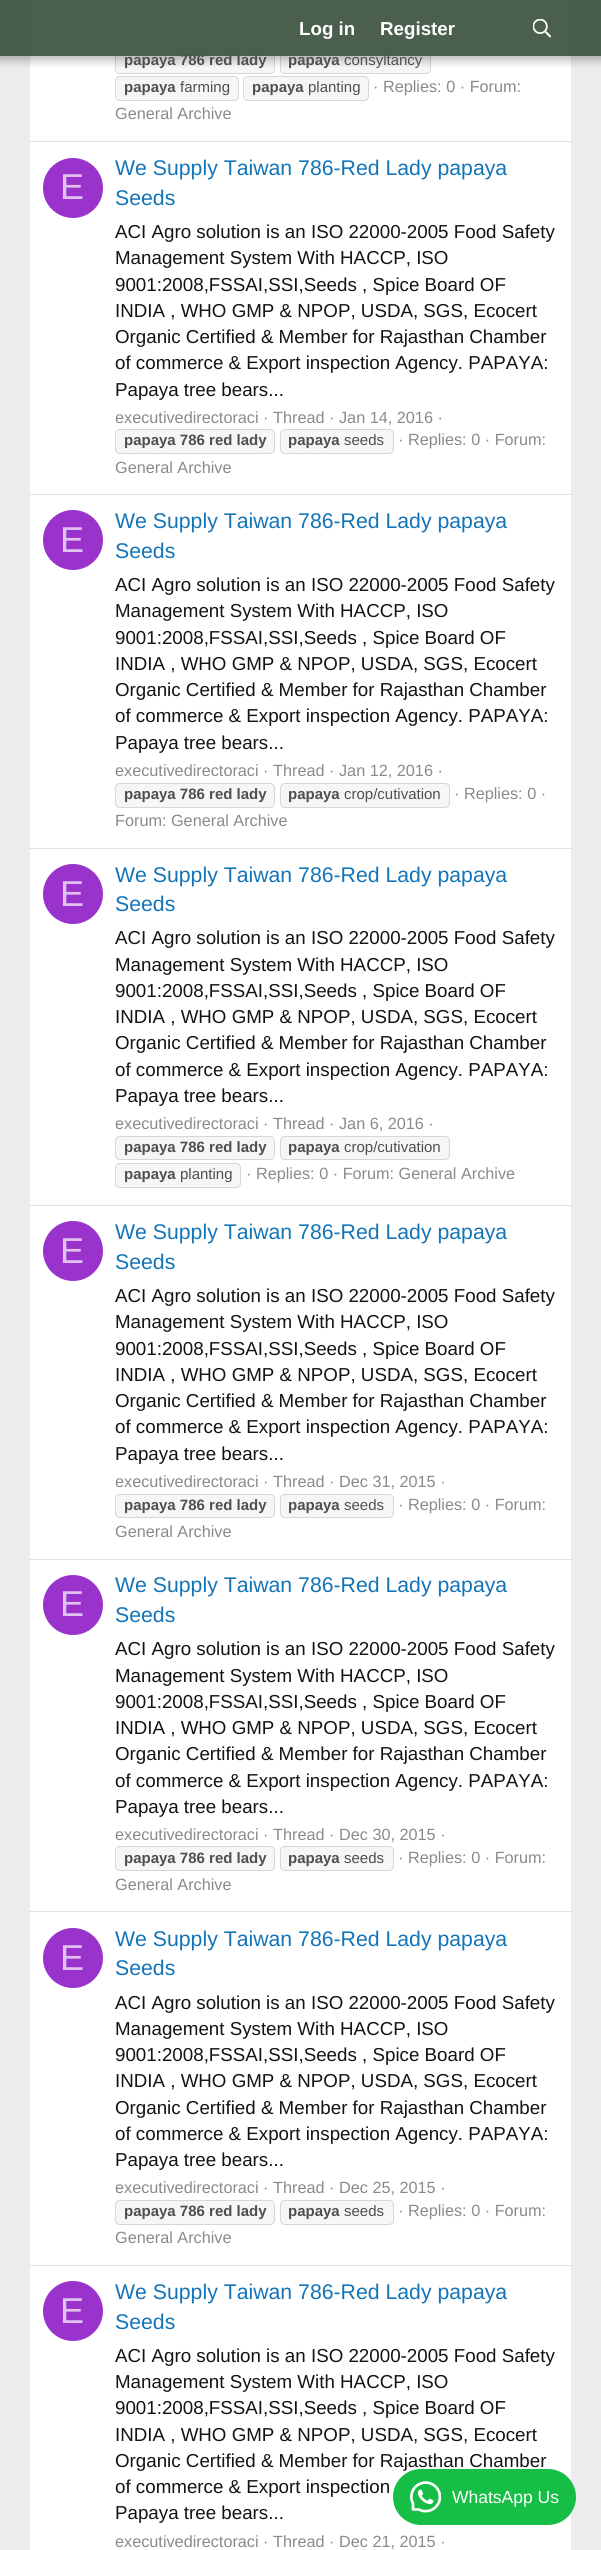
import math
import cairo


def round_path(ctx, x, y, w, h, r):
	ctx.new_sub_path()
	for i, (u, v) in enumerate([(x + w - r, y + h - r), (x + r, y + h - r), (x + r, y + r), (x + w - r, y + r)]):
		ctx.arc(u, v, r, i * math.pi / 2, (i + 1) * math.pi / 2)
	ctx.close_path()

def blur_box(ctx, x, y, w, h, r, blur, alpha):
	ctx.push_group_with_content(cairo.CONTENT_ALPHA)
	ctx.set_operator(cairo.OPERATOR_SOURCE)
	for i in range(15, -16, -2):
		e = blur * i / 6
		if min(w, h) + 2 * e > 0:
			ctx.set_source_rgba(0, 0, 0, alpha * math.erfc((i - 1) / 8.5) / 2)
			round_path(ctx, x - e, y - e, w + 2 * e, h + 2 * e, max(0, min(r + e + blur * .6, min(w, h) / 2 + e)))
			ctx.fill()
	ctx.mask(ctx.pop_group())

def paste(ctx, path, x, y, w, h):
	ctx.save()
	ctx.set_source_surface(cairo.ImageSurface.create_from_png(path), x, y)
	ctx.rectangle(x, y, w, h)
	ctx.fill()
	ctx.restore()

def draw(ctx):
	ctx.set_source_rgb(0.922, 0.922, 0.922)
	ctx.paint()
	ctx.set_source_rgb(1, 1, 1)
	ctx.rectangle(30, 0, 541, 2550)
	ctx.fill()
	ctx.set_source_rgb(0.961, 0.961, 0.961)
	round_path(ctx, 115.5, 49.5, 159, 24, 4.5)
	ctx.fill_preserve()
	ctx.set_source_rgb(0.839, 0.839, 0.839)
	ctx.set_line_width(1)
	ctx.stroke()
	ctx.set_source_rgb(0.961, 0.961, 0.961)
	round_path(ctx, 280.5, 49.5, 150, 24, 4.5)
	ctx.fill_preserve()
	ctx.set_source_rgb(0.839, 0.839, 0.839)
	ctx.stroke()
	ctx.save()
	ctx.rectangle(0, 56, 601, 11)
	ctx.clip()
	ctx.set_source_rgb(0, 0, 0)
	blur_box(ctx, -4, -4, 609, 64, 0, 5, 0.3)
	ctx.restore()
	ctx.select_font_face('Liberation Sans', cairo.FONT_SLANT_NORMAL, cairo.FONT_WEIGHT_BOLD)
	ctx.set_font_size(15)
	ctx.set_source_rgb(0.31, 0.31, 0.31)
	ctx.move_to(124, 65)
	ctx.show_text('papaya 786 red lady')
	ctx.select_font_face('Liberation Sans')
	ctx.move_to(344, 65)
	ctx.show_text('consyltancy')
	ctx.set_source_rgba(0.255, 0.345, 0.271, 0.95)
	ctx.rectangle(0, 0, 601, 56)
	ctx.fill()
	ctx.select_font_face('Liberation Sans', cairo.FONT_SLANT_NORMAL, cairo.FONT_WEIGHT_BOLD)
	ctx.set_font_size(18.75)
	ctx.set_source_rgb(1, 1, 1)
	ctx.move_to(299, 35)
	ctx.show_text('Log in')
	ctx.move_to(380, 35)
	ctx.show_text('Register')
	paste(ctx, 'media/1.png', 533, 19, 18, 19)
	ctx.set_font_size(15)
	ctx.set_source_rgb(0.31, 0.31, 0.31)
	ctx.move_to(288, 65)
	ctx.show_text('papaya')
	ctx.set_source_rgb(0.961, 0.961, 0.961)
	round_path(ctx, 115.5, 76.5, 123, 24, 4.5)
	ctx.fill_preserve()
	ctx.set_source_rgb(0.839, 0.839, 0.839)
	ctx.stroke()
	ctx.set_source_rgb(0.31, 0.31, 0.31)
	ctx.move_to(124, 92)
	ctx.show_text('papaya')
	ctx.select_font_face('Liberation Sans')
	ctx.move_to(180, 92)
	ctx.show_text('farming')
	ctx.set_source_rgb(0.961, 0.961, 0.961)
	round_path(ctx, 243.5, 76.5, 125, 24, 4.5)
	ctx.fill_preserve()
	ctx.set_source_rgb(0.839, 0.839, 0.839)
	ctx.stroke()
	ctx.select_font_face('Liberation Sans', cairo.FONT_SLANT_NORMAL, cairo.FONT_WEIGHT_BOLD)
	ctx.set_source_rgb(0.31, 0.31, 0.31)
	ctx.move_to(252, 92)
	ctx.show_text('papaya')
	ctx.select_font_face('Liberation Sans')
	ctx.move_to(308, 92)
	ctx.show_text('planting')
	ctx.set_font_size(16.25)
	ctx.set_source_rgb(0.541, 0.541, 0.541)
	ctx.move_to(373, 92)
	ctx.show_text('· Replies: 0 · Forum:')
	ctx.move_to(115, 119)
	ctx.show_text('General Archive')
	ctx.set_source_rgb(0.878, 0.878, 0.878)
	ctx.rectangle(30, 141, 541, 1)
	ctx.fill()
	ctx.set_source_rgb(0.6, 0.2, 0.8)
	ctx.arc(73, 188, 30, 0, 2 * math.pi)
	ctx.fill()
	ctx.set_font_size(36)
	ctx.set_source_rgb(0.878, 0.761, 0.941)
	ctx.move_to(60, 199)
	ctx.show_text('E')
	ctx.set_font_size(21.25)
	ctx.set_source_rgb(0.078, 0.455, 0.722)
	ctx.move_to(115, 175)
	ctx.show_text('We Supply Taiwan 786-Red Lady papaya')
	ctx.move_to(115, 205)
	ctx.show_text('Seeds')
	ctx.set_font_size(18.75)
	ctx.set_source_rgb(0.078, 0.078, 0.078)
	for x, y, s in [
		(115, 238, 'ACI Agro solution is an ISO 22000-2005 Food Safety'),
		(115, 264, 'Management System With HACCP, ISO'),
		(115, 291, '9001:2008,FSSAI,SSI,Seeds , Spice Board OF'),
		(115, 317, 'INDIA , WHO GMP & NPOP, USDA, SGS, Ecocert'),
		(115, 343, 'Organic Certified & Member for Rajasthan Chamber'),
		(115, 369, 'of commerce & Export inspection Agency. PAPAYA:'),
		(115, 396, 'Papaya tree bears...'),
	]:
		ctx.move_to(x, y)
		ctx.show_text(s)
	ctx.set_font_size(16.25)
	ctx.set_source_rgb(0.541, 0.541, 0.541)
	ctx.move_to(115, 423)
	ctx.show_text('executivedirectoraci · Thread · Jan 14, 2016 ·')
	ctx.set_source_rgb(0.961, 0.961, 0.961)
	round_path(ctx, 115.5, 429.5, 159, 24, 4.5)
	ctx.fill_preserve()
	ctx.set_source_rgb(0.839, 0.839, 0.839)
	ctx.stroke()
	ctx.select_font_face('Liberation Sans', cairo.FONT_SLANT_NORMAL, cairo.FONT_WEIGHT_BOLD)
	ctx.set_font_size(15)
	ctx.set_source_rgb(0.31, 0.31, 0.31)
	ctx.move_to(124, 445)
	ctx.show_text('papaya 786 red lady')
	ctx.set_source_rgb(0.961, 0.961, 0.961)
	round_path(ctx, 280.5, 429.5, 113, 24, 4.5)
	ctx.fill_preserve()
	ctx.set_source_rgb(0.839, 0.839, 0.839)
	ctx.stroke()
	ctx.set_source_rgb(0.31, 0.31, 0.31)
	ctx.move_to(288, 445)
	ctx.show_text('papaya')
	ctx.select_font_face('Liberation Sans')
	ctx.move_to(344, 445)
	ctx.show_text('seeds')
	ctx.set_font_size(16.25)
	ctx.set_source_rgb(0.541, 0.541, 0.541)
	ctx.move_to(398, 445)
	ctx.show_text('· Replies: 0 · Forum:')
	ctx.move_to(115, 473)
	ctx.show_text('General Archive')
	ctx.set_source_rgb(0.878, 0.878, 0.878)
	ctx.rectangle(30, 494, 541, 1)
	ctx.fill()
	ctx.set_source_rgb(0.6, 0.2, 0.8)
	ctx.arc(73, 540, 30, 0, 2 * math.pi)
	ctx.fill()
	ctx.set_font_size(36)
	ctx.set_source_rgb(0.878, 0.761, 0.941)
	ctx.move_to(60, 552)
	ctx.show_text('E')
	ctx.set_font_size(21.25)
	ctx.set_source_rgb(0.078, 0.455, 0.722)
	ctx.move_to(115, 528)
	ctx.show_text('We Supply Taiwan 786-Red Lady papaya')
	ctx.move_to(115, 558)
	ctx.show_text('Seeds')
	ctx.set_font_size(18.75)
	ctx.set_source_rgb(0.078, 0.078, 0.078)
	for x, y, s in [
		(115, 591, 'ACI Agro solution is an ISO 22000-2005 Food Safety'),
		(115, 617, 'Management System With HACCP, ISO'),
		(115, 644, '9001:2008,FSSAI,SSI,Seeds , Spice Board OF'),
		(115, 670, 'INDIA , WHO GMP & NPOP, USDA, SGS, Ecocert'),
		(115, 696, 'Organic Certified & Member for Rajasthan Chamber'),
		(115, 722, 'of commerce & Export inspection Agency. PAPAYA:'),
		(115, 749, 'Papaya tree bears...'),
	]:
		ctx.move_to(x, y)
		ctx.show_text(s)
	ctx.set_font_size(16.25)
	ctx.set_source_rgb(0.541, 0.541, 0.541)
	ctx.move_to(115, 776)
	ctx.show_text('executivedirectoraci · Thread · Jan 12, 2016 ·')
	ctx.set_source_rgb(0.961, 0.961, 0.961)
	round_path(ctx, 115.5, 783.5, 159, 24, 4.5)
	ctx.fill_preserve()
	ctx.set_source_rgb(0.839, 0.839, 0.839)
	ctx.stroke()
	ctx.select_font_face('Liberation Sans', cairo.FONT_SLANT_NORMAL, cairo.FONT_WEIGHT_BOLD)
	ctx.set_font_size(15)
	ctx.set_source_rgb(0.31, 0.31, 0.31)
	ctx.move_to(124, 799)
	ctx.show_text('papaya 786 red lady')
	ctx.set_source_rgb(0.961, 0.961, 0.961)
	round_path(ctx, 280.5, 783.5, 169, 24, 4.5)
	ctx.fill_preserve()
	ctx.set_source_rgb(0.839, 0.839, 0.839)
	ctx.stroke()
	ctx.set_source_rgb(0.31, 0.31, 0.31)
	ctx.move_to(288, 799)
	ctx.show_text('papaya')
	ctx.select_font_face('Liberation Sans')
	ctx.move_to(344, 799)
	ctx.show_text('crop/cutivation')
	ctx.set_font_size(16.25)
	ctx.set_source_rgb(0.541, 0.541, 0.541)
	ctx.move_to(454, 799)
	ctx.show_text('· Replies: 0 ·')
	ctx.move_to(115, 826)
	ctx.show_text('Forum: General Archive')
	ctx.set_source_rgb(0.878, 0.878, 0.878)
	ctx.rectangle(30, 848, 541, 1)
	ctx.fill()
	ctx.set_source_rgb(0.6, 0.2, 0.8)
	ctx.arc(73, 894, 30, 0, 2 * math.pi)
	ctx.fill()
	ctx.set_font_size(36)
	ctx.set_source_rgb(0.878, 0.761, 0.941)
	ctx.move_to(60, 906)
	ctx.show_text('E')
	ctx.set_font_size(21.25)
	ctx.set_source_rgb(0.078, 0.455, 0.722)
	ctx.move_to(115, 882)
	ctx.show_text('We Supply Taiwan 786-Red Lady papaya')
	ctx.move_to(115, 911)
	ctx.show_text('Seeds')
	ctx.set_font_size(18.75)
	ctx.set_source_rgb(0.078, 0.078, 0.078)
	for x, y, s in [
		(115, 944, 'ACI Agro solution is an ISO 22000-2005 Food Safety'),
		(115, 971, 'Management System With HACCP, ISO'),
		(115, 997, '9001:2008,FSSAI,SSI,Seeds , Spice Board OF'),
		(115, 1023, 'INDIA , WHO GMP & NPOP, USDA, SGS, Ecocert'),
		(115, 1049, 'Organic Certified & Member for Rajasthan Chamber'),
		(115, 1076, 'of commerce & Export inspection Agency. PAPAYA:'),
		(115, 1102, 'Papaya tree bears...'),
	]:
		ctx.move_to(x, y)
		ctx.show_text(s)
	ctx.set_font_size(16.25)
	ctx.set_source_rgb(0.541, 0.541, 0.541)
	ctx.move_to(115, 1129)
	ctx.show_text('executivedirectoraci · Thread · Jan 6, 2016 ·')
	ctx.set_source_rgb(0.961, 0.961, 0.961)
	round_path(ctx, 115.5, 1136.5, 159, 23, 4.5)
	ctx.fill_preserve()
	ctx.set_source_rgb(0.839, 0.839, 0.839)
	ctx.stroke()
	ctx.select_font_face('Liberation Sans', cairo.FONT_SLANT_NORMAL, cairo.FONT_WEIGHT_BOLD)
	ctx.set_font_size(15)
	ctx.set_source_rgb(0.31, 0.31, 0.31)
	ctx.move_to(124, 1152)
	ctx.show_text('papaya 786 red lady')
	ctx.set_source_rgb(0.961, 0.961, 0.961)
	round_path(ctx, 280.5, 1136.5, 169, 23, 4.5)
	ctx.fill_preserve()
	ctx.set_source_rgb(0.839, 0.839, 0.839)
	ctx.stroke()
	ctx.set_source_rgb(0.31, 0.31, 0.31)
	ctx.move_to(288, 1152)
	ctx.show_text('papaya')
	ctx.select_font_face('Liberation Sans')
	ctx.move_to(344, 1152)
	ctx.show_text('crop/cutivation')
	ctx.set_source_rgb(0.961, 0.961, 0.961)
	round_path(ctx, 115.5, 1163.5, 125, 24, 4.5)
	ctx.fill_preserve()
	ctx.set_source_rgb(0.839, 0.839, 0.839)
	ctx.stroke()
	ctx.select_font_face('Liberation Sans', cairo.FONT_SLANT_NORMAL, cairo.FONT_WEIGHT_BOLD)
	ctx.set_source_rgb(0.31, 0.31, 0.31)
	ctx.move_to(124, 1179)
	ctx.show_text('papaya')
	ctx.select_font_face('Liberation Sans')
	ctx.move_to(180, 1179)
	ctx.show_text('planting')
	ctx.set_font_size(16.25)
	ctx.set_source_rgb(0.541, 0.541, 0.541)
	ctx.move_to(246, 1179)
	ctx.show_text('· Replies: 0 · Forum: General Archive')
	ctx.set_source_rgb(0.878, 0.878, 0.878)
	ctx.rectangle(30, 1205, 541, 1)
	ctx.fill()
	ctx.set_source_rgb(0.6, 0.2, 0.8)
	ctx.arc(73, 1251, 30, 0, 2 * math.pi)
	ctx.fill()
	ctx.set_font_size(36)
	ctx.set_source_rgb(0.878, 0.761, 0.941)
	ctx.move_to(60, 1263)
	ctx.show_text('E')
	ctx.set_font_size(21.25)
	ctx.set_source_rgb(0.078, 0.455, 0.722)
	ctx.move_to(115, 1239)
	ctx.show_text('We Supply Taiwan 786-Red Lady papaya')
	ctx.move_to(115, 1269)
	ctx.show_text('Seeds')
	ctx.set_font_size(18.75)
	ctx.set_source_rgb(0.078, 0.078, 0.078)
	for x, y, s in [
		(115, 1302, 'ACI Agro solution is an ISO 22000-2005 Food Safety'),
		(115, 1328, 'Management System With HACCP, ISO'),
		(115, 1355, '9001:2008,FSSAI,SSI,Seeds , Spice Board OF'),
		(115, 1381, 'INDIA , WHO GMP & NPOP, USDA, SGS, Ecocert'),
		(115, 1407, 'Organic Certified & Member for Rajasthan Chamber'),
		(115, 1433, 'of commerce & Export inspection Agency. PAPAYA:'),
		(115, 1460, 'Papaya tree bears...'),
	]:
		ctx.move_to(x, y)
		ctx.show_text(s)
	ctx.set_font_size(16.25)
	ctx.set_source_rgb(0.541, 0.541, 0.541)
	ctx.move_to(115, 1487)
	ctx.show_text('executivedirectoraci · Thread · Dec 31, 2015 ·')
	ctx.set_source_rgb(0.961, 0.961, 0.961)
	round_path(ctx, 115.5, 1494.5, 159, 23, 4.5)
	ctx.fill_preserve()
	ctx.set_source_rgb(0.839, 0.839, 0.839)
	ctx.stroke()
	ctx.select_font_face('Liberation Sans', cairo.FONT_SLANT_NORMAL, cairo.FONT_WEIGHT_BOLD)
	ctx.set_font_size(15)
	ctx.set_source_rgb(0.31, 0.31, 0.31)
	ctx.move_to(124, 1510)
	ctx.show_text('papaya 786 red lady')
	ctx.set_source_rgb(0.961, 0.961, 0.961)
	round_path(ctx, 280.5, 1494.5, 113, 23, 4.5)
	ctx.fill_preserve()
	ctx.set_source_rgb(0.839, 0.839, 0.839)
	ctx.stroke()
	ctx.set_source_rgb(0.31, 0.31, 0.31)
	ctx.move_to(288, 1510)
	ctx.show_text('papaya')
	ctx.select_font_face('Liberation Sans')
	ctx.move_to(344, 1510)
	ctx.show_text('seeds')
	ctx.set_font_size(16.25)
	ctx.set_source_rgb(0.541, 0.541, 0.541)
	ctx.move_to(398, 1510)
	ctx.show_text('· Replies: 0 · Forum:')
	ctx.move_to(115, 1537)
	ctx.show_text('General Archive')
	ctx.set_source_rgb(0.878, 0.878, 0.878)
	ctx.rectangle(30, 1559, 541, 1)
	ctx.fill()
	ctx.set_source_rgb(0.6, 0.2, 0.8)
	ctx.arc(73, 1605, 30, 0, 2 * math.pi)
	ctx.fill()
	ctx.set_font_size(36)
	ctx.set_source_rgb(0.878, 0.761, 0.941)
	ctx.move_to(60, 1616)
	ctx.show_text('E')
	ctx.set_font_size(21.25)
	ctx.set_source_rgb(0.078, 0.455, 0.722)
	ctx.move_to(115, 1592)
	ctx.show_text('We Supply Taiwan 786-Red Lady papaya')
	ctx.move_to(115, 1622)
	ctx.show_text('Seeds')
	ctx.set_font_size(18.75)
	ctx.set_source_rgb(0.078, 0.078, 0.078)
	for x, y, s in [
		(115, 1655, 'ACI Agro solution is an ISO 22000-2005 Food Safety'),
		(115, 1682, 'Management System With HACCP, ISO'),
		(115, 1708, '9001:2008,FSSAI,SSI,Seeds , Spice Board OF'),
		(115, 1734, 'INDIA , WHO GMP & NPOP, USDA, SGS, Ecocert'),
		(115, 1760, 'Organic Certified & Member for Rajasthan Chamber'),
		(115, 1787, 'of commerce & Export inspection Agency. PAPAYA:'),
		(115, 1813, 'Papaya tree bears...'),
	]:
		ctx.move_to(x, y)
		ctx.show_text(s)
	ctx.set_font_size(16.25)
	ctx.set_source_rgb(0.541, 0.541, 0.541)
	ctx.move_to(115, 1840)
	ctx.show_text('executivedirectoraci · Thread · Dec 30, 2015 ·')
	ctx.set_source_rgb(0.961, 0.961, 0.961)
	round_path(ctx, 115.5, 1846.5, 159, 24, 4.5)
	ctx.fill_preserve()
	ctx.set_source_rgb(0.839, 0.839, 0.839)
	ctx.stroke()
	ctx.select_font_face('Liberation Sans', cairo.FONT_SLANT_NORMAL, cairo.FONT_WEIGHT_BOLD)
	ctx.set_font_size(15)
	ctx.set_source_rgb(0.31, 0.31, 0.31)
	ctx.move_to(124, 1863)
	ctx.show_text('papaya 786 red lady')
	ctx.set_source_rgb(0.961, 0.961, 0.961)
	round_path(ctx, 280.5, 1846.5, 113, 24, 4.5)
	ctx.fill_preserve()
	ctx.set_source_rgb(0.839, 0.839, 0.839)
	ctx.stroke()
	ctx.set_source_rgb(0.31, 0.31, 0.31)
	ctx.move_to(288, 1863)
	ctx.show_text('papaya')
	ctx.select_font_face('Liberation Sans')
	ctx.move_to(344, 1863)
	ctx.show_text('seeds')
	ctx.set_font_size(16.25)
	ctx.set_source_rgb(0.541, 0.541, 0.541)
	ctx.move_to(398, 1863)
	ctx.show_text('· Replies: 0 · Forum:')
	ctx.move_to(115, 1890)
	ctx.show_text('General Archive')
	ctx.set_source_rgb(0.878, 0.878, 0.878)
	ctx.rectangle(30, 1911, 541, 1)
	ctx.fill()
	ctx.set_source_rgb(0.6, 0.2, 0.8)
	ctx.arc(73, 1958, 30, 0, 2 * math.pi)
	ctx.fill()
	ctx.set_font_size(36)
	ctx.set_source_rgb(0.878, 0.761, 0.941)
	ctx.move_to(60, 1970)
	ctx.show_text('E')
	ctx.set_font_size(21.25)
	ctx.set_source_rgb(0.078, 0.455, 0.722)
	ctx.move_to(115, 1946)
	ctx.show_text('We Supply Taiwan 786-Red Lady papaya')
	ctx.move_to(115, 1975)
	ctx.show_text('Seeds')
	ctx.set_font_size(18.75)
	ctx.set_source_rgb(0.078, 0.078, 0.078)
	for x, y, s in [
		(115, 2009, 'ACI Agro solution is an ISO 22000-2005 Food Safety'),
		(115, 2035, 'Management System With HACCP, ISO'),
		(115, 2061, '9001:2008,FSSAI,SSI,Seeds , Spice Board OF'),
		(115, 2087, 'INDIA , WHO GMP & NPOP, USDA, SGS, Ecocert'),
		(115, 2114, 'Organic Certified & Member for Rajasthan Chamber'),
		(115, 2140, 'of commerce & Export inspection Agency. PAPAYA:'),
		(115, 2166, 'Papaya tree bears...'),
	]:
		ctx.move_to(x, y)
		ctx.show_text(s)
	ctx.set_font_size(16.25)
	ctx.set_source_rgb(0.541, 0.541, 0.541)
	ctx.move_to(115, 2193)
	ctx.show_text('executivedirectoraci · Thread · Dec 25, 2015 ·')
	ctx.set_source_rgb(0.961, 0.961, 0.961)
	round_path(ctx, 115.5, 2200.5, 159, 24, 4.5)
	ctx.fill_preserve()
	ctx.set_source_rgb(0.839, 0.839, 0.839)
	ctx.stroke()
	ctx.select_font_face('Liberation Sans', cairo.FONT_SLANT_NORMAL, cairo.FONT_WEIGHT_BOLD)
	ctx.set_font_size(15)
	ctx.set_source_rgb(0.31, 0.31, 0.31)
	ctx.move_to(124, 2216)
	ctx.show_text('papaya 786 red lady')
	ctx.set_source_rgb(0.961, 0.961, 0.961)
	round_path(ctx, 280.5, 2200.5, 113, 24, 4.5)
	ctx.fill_preserve()
	ctx.set_source_rgb(0.839, 0.839, 0.839)
	ctx.stroke()
	ctx.set_source_rgb(0.31, 0.31, 0.31)
	ctx.move_to(288, 2216)
	ctx.show_text('papaya')
	ctx.select_font_face('Liberation Sans')
	ctx.move_to(344, 2216)
	ctx.show_text('seeds')
	ctx.set_font_size(16.25)
	ctx.set_source_rgb(0.541, 0.541, 0.541)
	ctx.move_to(398, 2216)
	ctx.show_text('· Replies: 0 · Forum:')
	ctx.move_to(115, 2243)
	ctx.show_text('General Archive')
	ctx.set_source_rgb(0.878, 0.878, 0.878)
	ctx.rectangle(30, 2265, 541, 1)
	ctx.fill()
	ctx.set_source_rgb(0.6, 0.2, 0.8)
	ctx.arc(73, 2311, 30, 0, 2 * math.pi)
	ctx.fill()
	ctx.set_font_size(36)
	ctx.set_source_rgb(0.878, 0.761, 0.941)
	ctx.move_to(60, 2323)
	ctx.show_text('E')
	ctx.set_font_size(21.25)
	ctx.set_source_rgb(0.078, 0.455, 0.722)
	ctx.move_to(115, 2299)
	ctx.show_text('We Supply Taiwan 786-Red Lady papaya')
	ctx.move_to(115, 2329)
	ctx.show_text('Seeds')
	ctx.set_font_size(18.75)
	ctx.set_source_rgb(0.078, 0.078, 0.078)
	for x, y, s in [
		(115, 2362, 'ACI Agro solution is an ISO 22000-2005 Food Safety'),
		(115, 2388, 'Management System With HACCP, ISO'),
		(115, 2414, '9001:2008,FSSAI,SSI,Seeds , Spice Board OF'),
		(115, 2441, 'INDIA , WHO GMP & NPOP, USDA, SGS, Ecocert'),
		(115, 2467, 'Organic Certified & Member for Rajasthan Chamber'),
		(115, 2493, 'of commerce & Export inspection'),
		(115, 2519, 'Papaya tree bears...'),
	]:
		ctx.move_to(x, y)
		ctx.show_text(s)
	ctx.set_font_size(16.25)
	ctx.set_source_rgb(0.541, 0.541, 0.541)
	ctx.move_to(115, 2547)
	ctx.show_text('executivedirectoraci · Thread · Dec 21, 2015 ·')
	ctx.set_source_rgb(0.086, 0.745, 0.271)
	round_path(ctx, 393, 2469, 183, 56, 28)
	ctx.fill()
	paste(ctx, 'media/2.png', 410, 2481, 31, 32)
	ctx.set_font_size(17.5)
	ctx.set_source_rgb(1, 1, 1)
	ctx.move_to(452, 2503)
	ctx.show_text('WhatsApp Us')


surface = cairo.ImageSurface(cairo.FORMAT_RGB24, 601, 2550)
ctx = cairo.Context(surface)
options = cairo.FontOptions()
options.set_hint_metrics(cairo.HINT_METRICS_OFF)
options.set_hint_style(cairo.HINT_STYLE_NONE)
ctx.set_font_options(options)
ctx.set_miter_limit(4)
draw(ctx)
surface.write_to_png('image.png')
